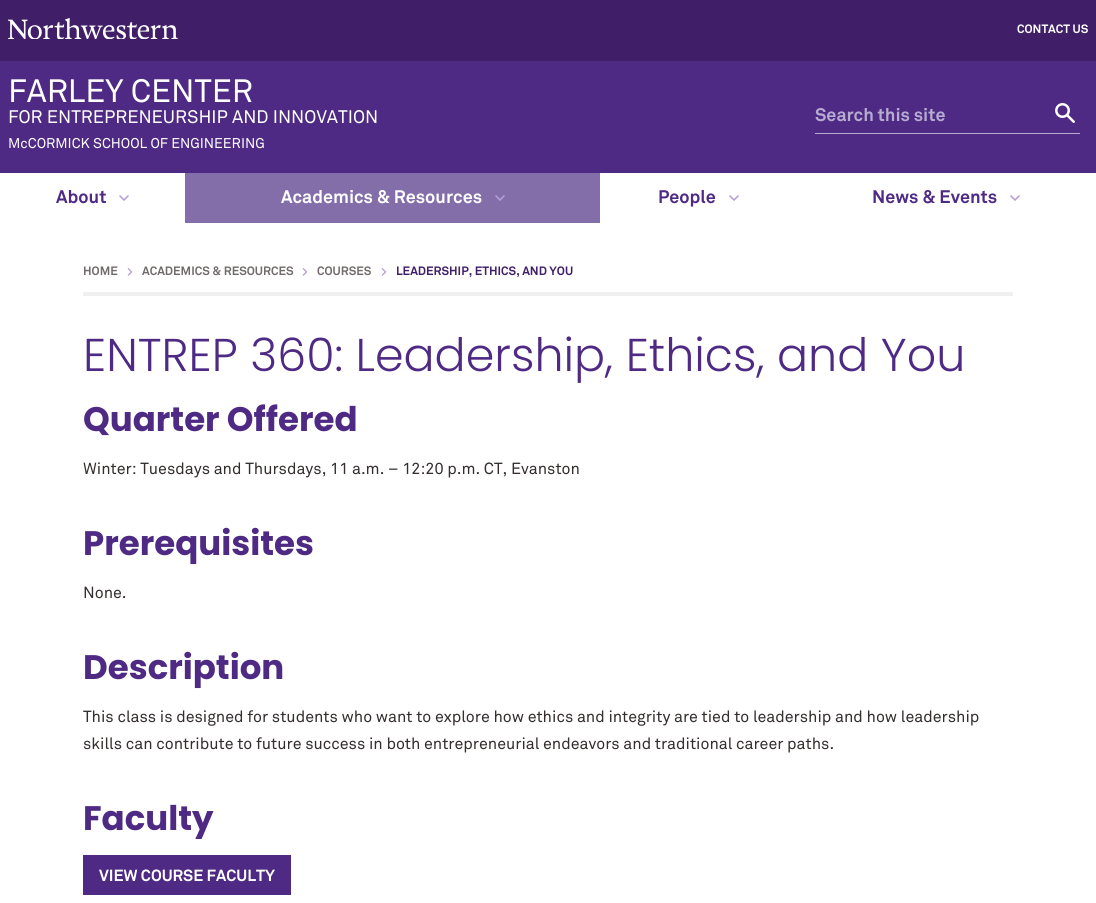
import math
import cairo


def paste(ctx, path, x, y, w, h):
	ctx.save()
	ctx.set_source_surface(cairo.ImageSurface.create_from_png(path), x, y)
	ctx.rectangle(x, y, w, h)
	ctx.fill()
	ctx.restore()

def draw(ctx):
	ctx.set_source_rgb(1, 1, 1)
	ctx.paint()
	ctx.set_source_rgb(0.306, 0.165, 0.518)
	ctx.rectangle(0, 61, 1096, 112)
	ctx.fill()
	ctx.set_source_rgb(0.251, 0.122, 0.408)
	ctx.rectangle(0, 0, 1096, 61)
	ctx.fill()
	paste(ctx, 'media/1.png', 8, 18, 170, 21)
	ctx.select_font_face('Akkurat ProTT', cairo.FONT_SLANT_NORMAL, cairo.FONT_WEIGHT_BOLD)
	ctx.set_font_size(12)
	ctx.set_source_rgb(1, 1, 1)
	ctx.move_to(1017, 33)
	ctx.show_text('CONTACT US')
	ctx.select_font_face('Akkurat ProTT')
	ctx.set_font_size(32)
	ctx.move_to(8, 102)
	ctx.show_text('FARLEY CENTER')
	ctx.set_font_size(18)
	ctx.move_to(8, 123)
	ctx.show_text('FOR ENTREPRENEURSHIP AND INNOVATION')
	ctx.set_font_size(14)
	ctx.move_to(8, 148)
	ctx.show_text('McCORMICK SCHOOL OF ENGINEERING')
	ctx.set_source_rgb(0.714, 0.675, 0.82)
	ctx.rectangle(815, 133, 265, 1)
	ctx.fill()
	ctx.select_font_face('Akkurat ProTT', cairo.FONT_SLANT_NORMAL, cairo.FONT_WEIGHT_BOLD)
	ctx.set_font_size(18)
	ctx.move_to(815, 121)
	ctx.show_text('Search this site')
	paste(ctx, 'media/2.png', 1055, 103, 20, 20)
	ctx.set_source_rgb(0.306, 0.165, 0.518)
	ctx.move_to(56, 203)
	ctx.show_text('About')
	paste(ctx, 'media/3.png', 119, 195, 10, 6)
	ctx.set_source_rgb(0.514, 0.431, 0.667)
	ctx.rectangle(185, 173, 415, 50)
	ctx.fill()
	ctx.set_source_rgb(1, 1, 1)
	ctx.move_to(281, 203)
	ctx.show_text('Academics & Resources')
	paste(ctx, 'media/4.png', 495, 195, 10, 6)
	ctx.set_source_rgb(0.306, 0.165, 0.518)
	ctx.move_to(658, 203)
	ctx.show_text('People')
	paste(ctx, 'media/3.png', 729, 195, 10, 6)
	ctx.move_to(872, 203)
	ctx.show_text('News & Events')
	paste(ctx, 'media/3.png', 1010, 195, 10, 6)
	ctx.set_source_rgb(0.941, 0.941, 0.941)
	ctx.rectangle(83, 292, 930, 4)
	ctx.fill()
	ctx.set_font_size(12)
	ctx.set_source_rgb(0.443, 0.424, 0.42)
	ctx.move_to(83, 275)
	ctx.show_text('HOME')
	paste(ctx, 'media/5.png', 127, 268, 6, 8)
	ctx.move_to(142, 275)
	ctx.show_text('ACADEMICS & RESOURCES')
	paste(ctx, 'media/5.png', 302, 268, 6, 8)
	ctx.move_to(317, 275)
	ctx.show_text('COURSES')
	paste(ctx, 'media/5.png', 381, 268, 6, 8)
	ctx.set_source_rgb(0.251, 0.122, 0.408)
	ctx.move_to(396, 275)
	ctx.show_text('LEADERSHIP, ETHICS, AND YOU')
	ctx.select_font_face('Poppins Light')
	ctx.set_font_size(46)
	ctx.set_source_rgb(0.306, 0.165, 0.518)
	ctx.move_to(83, 371)
	ctx.show_text('ENTREP 360: Leadership, Ethics, and You')
	ctx.select_font_face('Poppins', cairo.FONT_SLANT_NORMAL, cairo.FONT_WEIGHT_BOLD)
	ctx.set_font_size(34)
	ctx.move_to(83, 431)
	ctx.show_text('Quarter Offered')
	ctx.select_font_face('Akkurat ProTT')
	ctx.set_font_size(16)
	ctx.set_source_rgb(0.204, 0.184, 0.18)
	ctx.move_to(83, 474)
	ctx.show_text('Winter: Tuesdays and Thursdays, 11 a.m. – 12:20 p.m. CT, Evanston')
	ctx.select_font_face('Poppins', cairo.FONT_SLANT_NORMAL, cairo.FONT_WEIGHT_BOLD)
	ctx.set_font_size(34)
	ctx.set_source_rgb(0.306, 0.165, 0.518)
	ctx.move_to(83, 555)
	ctx.show_text('Prerequisites')
	ctx.select_font_face('Akkurat ProTT')
	ctx.set_font_size(16)
	ctx.set_source_rgb(0.204, 0.184, 0.18)
	ctx.move_to(83, 598)
	ctx.show_text('None.')
	ctx.select_font_face('Poppins', cairo.FONT_SLANT_NORMAL, cairo.FONT_WEIGHT_BOLD)
	ctx.set_font_size(34)
	ctx.set_source_rgb(0.306, 0.165, 0.518)
	ctx.move_to(83, 679)
	ctx.show_text('Description')
	ctx.select_font_face('Akkurat ProTT')
	ctx.set_font_size(16)
	ctx.set_source_rgb(0.204, 0.184, 0.18)
	ctx.move_to(83, 722)
	ctx.show_text('This class is designed for students who want to explore how ethics and integrity are tied to leadership and how leadership')
	ctx.move_to(83, 749)
	ctx.show_text('skills can contribute to future success in both entrepreneurial endeavors and traditional career paths.')
	ctx.select_font_face('Poppins', cairo.FONT_SLANT_NORMAL, cairo.FONT_WEIGHT_BOLD)
	ctx.set_font_size(34)
	ctx.set_source_rgb(0.306, 0.165, 0.518)
	ctx.move_to(83, 830)
	ctx.show_text('Faculty')
	ctx.rectangle(83, 855, 208, 40)
	ctx.fill()
	ctx.select_font_face('Akkurat ProTT', cairo.FONT_SLANT_NORMAL, cairo.FONT_WEIGHT_BOLD)
	ctx.set_font_size(16)
	ctx.set_source_rgb(1, 1, 1)
	ctx.move_to(99, 881)
	ctx.show_text('VIEW COURSE FACULTY')


surface = cairo.ImageSurface(cairo.FORMAT_RGB24, 1096, 903)
ctx = cairo.Context(surface)
options = cairo.FontOptions()
options.set_hint_metrics(cairo.HINT_METRICS_OFF)
options.set_hint_style(cairo.HINT_STYLE_NONE)
ctx.set_font_options(options)
ctx.set_miter_limit(4)
draw(ctx)
surface.write_to_png('image.png')
